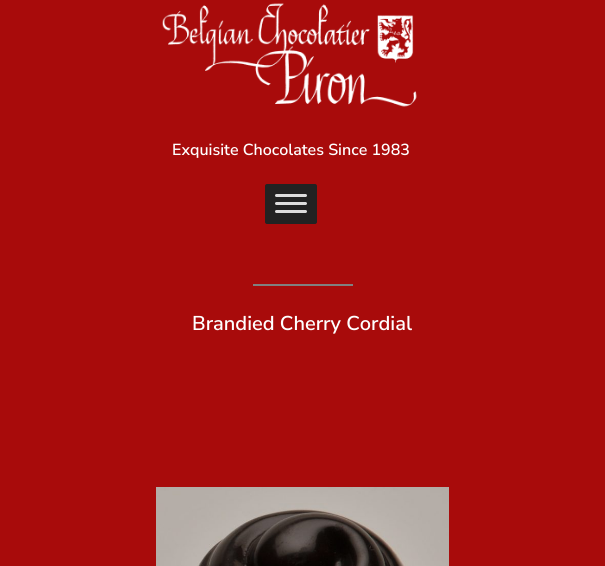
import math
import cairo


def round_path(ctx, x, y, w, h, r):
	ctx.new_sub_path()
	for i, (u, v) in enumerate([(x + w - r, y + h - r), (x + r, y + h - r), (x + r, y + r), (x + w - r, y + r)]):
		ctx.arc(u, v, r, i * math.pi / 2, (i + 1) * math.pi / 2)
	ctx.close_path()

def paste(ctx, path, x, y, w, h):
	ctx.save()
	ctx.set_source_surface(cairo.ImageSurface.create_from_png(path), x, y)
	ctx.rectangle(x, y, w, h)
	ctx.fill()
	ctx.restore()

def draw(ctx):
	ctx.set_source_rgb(0.659, 0.043, 0.043)
	ctx.paint()
	paste(ctx, 'media/1.png', 162, 3, 255, 104)
	ctx.select_font_face('Nunito Sans SemiBold')
	ctx.set_font_size(16)
	ctx.set_source_rgb(1, 1, 1)
	ctx.move_to(172, 155)
	ctx.show_text('Exquisite Chocolates Since 1983')
	ctx.set_source_rgb(0.133, 0.133, 0.133)
	round_path(ctx, 265, 184, 52, 40, 2)
	ctx.fill()
	ctx.set_source_rgb(0.867, 0.867, 0.867)
	round_path(ctx, 275, 194, 32, 3, 1.5)
	ctx.fill()
	round_path(ctx, 275, 202, 32, 3, 1.5)
	ctx.fill()
	round_path(ctx, 275, 210, 32, 3, 1.5)
	ctx.fill()
	ctx.set_source_rgb(0.502, 0.502, 0.502)
	ctx.rectangle(253, 284, 100, 2)
	ctx.fill()
	ctx.set_font_size(20)
	ctx.set_source_rgb(1, 1, 1)
	ctx.move_to(192, 330)
	ctx.show_text('Brandied Cherry Cordial')
	paste(ctx, 'media/2.png', 156, 487, 293, 79)


surface = cairo.ImageSurface(cairo.FORMAT_RGB24, 605, 566)
ctx = cairo.Context(surface)
options = cairo.FontOptions()
options.set_hint_metrics(cairo.HINT_METRICS_OFF)
options.set_hint_style(cairo.HINT_STYLE_NONE)
ctx.set_font_options(options)
ctx.set_miter_limit(4)
draw(ctx)
surface.write_to_png('image.png')
